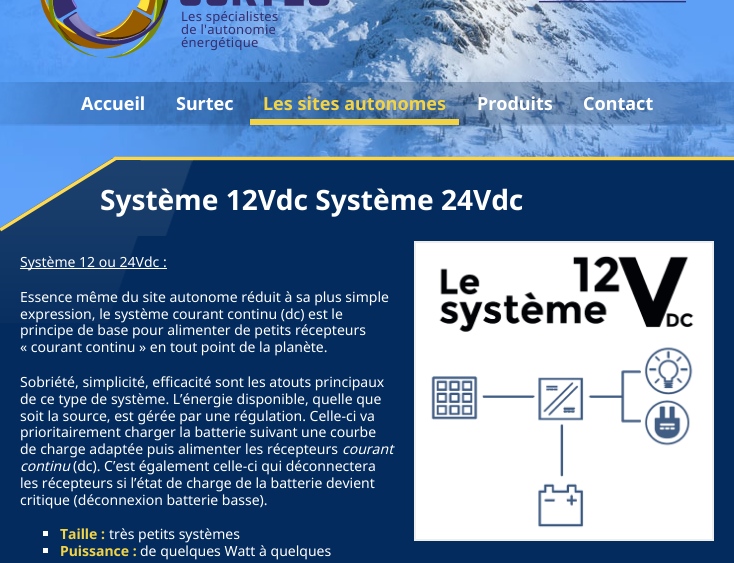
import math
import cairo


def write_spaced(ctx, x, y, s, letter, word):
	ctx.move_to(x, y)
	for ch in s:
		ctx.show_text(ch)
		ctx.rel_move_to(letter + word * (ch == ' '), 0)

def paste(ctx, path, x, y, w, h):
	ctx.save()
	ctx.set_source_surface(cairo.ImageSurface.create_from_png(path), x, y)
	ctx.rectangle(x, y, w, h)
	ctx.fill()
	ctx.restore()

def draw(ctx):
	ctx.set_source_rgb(1, 1, 1)
	ctx.paint()
	paste(ctx, 'media/1.png', 0, 0, 734, 232)
	paste(ctx, 'media/2.png', 538, 1, 149, 2)
	paste(ctx, 'media/3.png', 40, 0, 290, 58)
	ctx.select_font_face('Noto Sans')
	ctx.set_font_size(13)
	ctx.set_source_rgb(0.208, 0.173, 0.424)
	for x, y, s in [
		(181, 21, 'Les spécialistes'),
		(181, 34, 'de l\'autonomie'),
		(181, 47, 'énergétique'),
	]:
		write_spaced(ctx, x, y, s, 0.25, 0)
	paste(ctx, 'media/4.png', 0, 82, 734, 44)
	ctx.select_font_face('Noto Sans', cairo.FONT_SLANT_NORMAL, cairo.FONT_WEIGHT_BOLD)
	ctx.set_font_size(18)
	ctx.set_source_rgb(1, 1, 1)
	ctx.move_to(81, 110)
	ctx.show_text('Accueil')
	ctx.move_to(176, 110)
	ctx.show_text('Surtec')
	ctx.set_source_rgb(0.949, 0.827, 0.271)
	ctx.rectangle(250, 119, 209, 6)
	ctx.fill()
	ctx.move_to(263, 110)
	ctx.show_text('Les sites autonomes')
	ctx.set_source_rgb(1, 1, 1)
	ctx.move_to(477, 110)
	ctx.show_text('Produits')
	ctx.move_to(583, 110)
	ctx.show_text('Contact')
	paste(ctx, 'media/5.png', 0, 156, 734, 80)
	ctx.set_font_size(28)
	ctx.move_to(100, 210)
	ctx.show_text('Système 12Vdc Système 24Vdc')
	ctx.set_source_rgb(0.012, 0.169, 0.365)
	ctx.rectangle(0, 236, 734, 327)
	ctx.fill()
	paste(ctx, 'media/6.png', 0, 236, 138, 87)
	ctx.set_source_rgb(1, 1, 1)
	ctx.rectangle(20, 268, 147, 1)
	ctx.fill()
	ctx.select_font_face('Noto Sans')
	ctx.set_font_size(14)
	ctx.move_to(20, 267)
	ctx.show_text('Système 12 ou 24Vdc :')
	ctx.rectangle(415, 242, 298, 298)
	ctx.set_source_rgb(0.933, 0.933, 0.933)
	ctx.stroke()
	paste(ctx, 'media/7.png', 416, 243, 296, 296)
	ctx.set_source_rgb(1, 1, 1)
	for x, y, s in [
		(20, 302, 'Essence même du site autonome réduit à sa plus simple'),
		(20, 319, 'expression, le système courant continu (dc) est le'),
		(20, 335, 'principe de base pour alimenter de petits récepteurs'),
		(20, 352, '« courant continu » en tout point de la planète.'),
		(20, 387, 'Sobriété, simplicité, efficacité sont les atouts principaux'),
		(20, 404, 'de ce type de système. L’énergie disponible, quelle que'),
		(20, 421, 'soit la source, est gérée par une régulation. Celle-ci va'),
		(20, 437, 'prioritairement charger la batterie suivant une courbe'),
		(20, 454, 'de charge adaptée puis alimenter les récepteurs'),
	]:
		ctx.move_to(x, y)
		ctx.show_text(s)
	ctx.select_font_face('Noto Sans', cairo.FONT_SLANT_ITALIC)
	ctx.move_to(342, 454)
	ctx.show_text('courant')
	ctx.move_to(20, 471)
	ctx.show_text('continu')
	ctx.select_font_face('Noto Sans')
	for x, y, s in [
		(73, 471, '(dc). C’est également celle-ci qui déconnectera'),
		(20, 488, 'les récepteurs si l’état de charge de la batterie devient'),
		(20, 505, 'critique (déconnexion batterie basse).'),
	]:
		ctx.move_to(x, y)
		ctx.show_text(s)
	ctx.rectangle(43, 531, 5, 5)
	ctx.fill()
	ctx.select_font_face('Noto Sans', cairo.FONT_SLANT_NORMAL, cairo.FONT_WEIGHT_BOLD)
	ctx.set_source_rgb(0.949, 0.827, 0.271)
	ctx.move_to(60, 539)
	ctx.show_text('Taille :')
	ctx.select_font_face('Noto Sans')
	ctx.set_source_rgb(1, 1, 1)
	ctx.move_to(109, 539)
	ctx.show_text('très petits systèmes')
	ctx.rectangle(43, 548, 5, 5)
	ctx.fill()
	ctx.select_font_face('Noto Sans', cairo.FONT_SLANT_NORMAL, cairo.FONT_WEIGHT_BOLD)
	ctx.set_source_rgb(0.949, 0.827, 0.271)
	ctx.move_to(60, 556)
	ctx.show_text('Puissance :')
	ctx.select_font_face('Noto Sans')
	ctx.set_source_rgb(1, 1, 1)
	ctx.move_to(140, 556)
	ctx.show_text('de quelques Watt à quelques')


surface = cairo.ImageSurface(cairo.FORMAT_RGB24, 734, 563)
ctx = cairo.Context(surface)
options = cairo.FontOptions()
options.set_hint_metrics(cairo.HINT_METRICS_OFF)
options.set_hint_style(cairo.HINT_STYLE_NONE)
ctx.set_font_options(options)
ctx.set_miter_limit(4)
draw(ctx)
surface.write_to_png('image.png')
